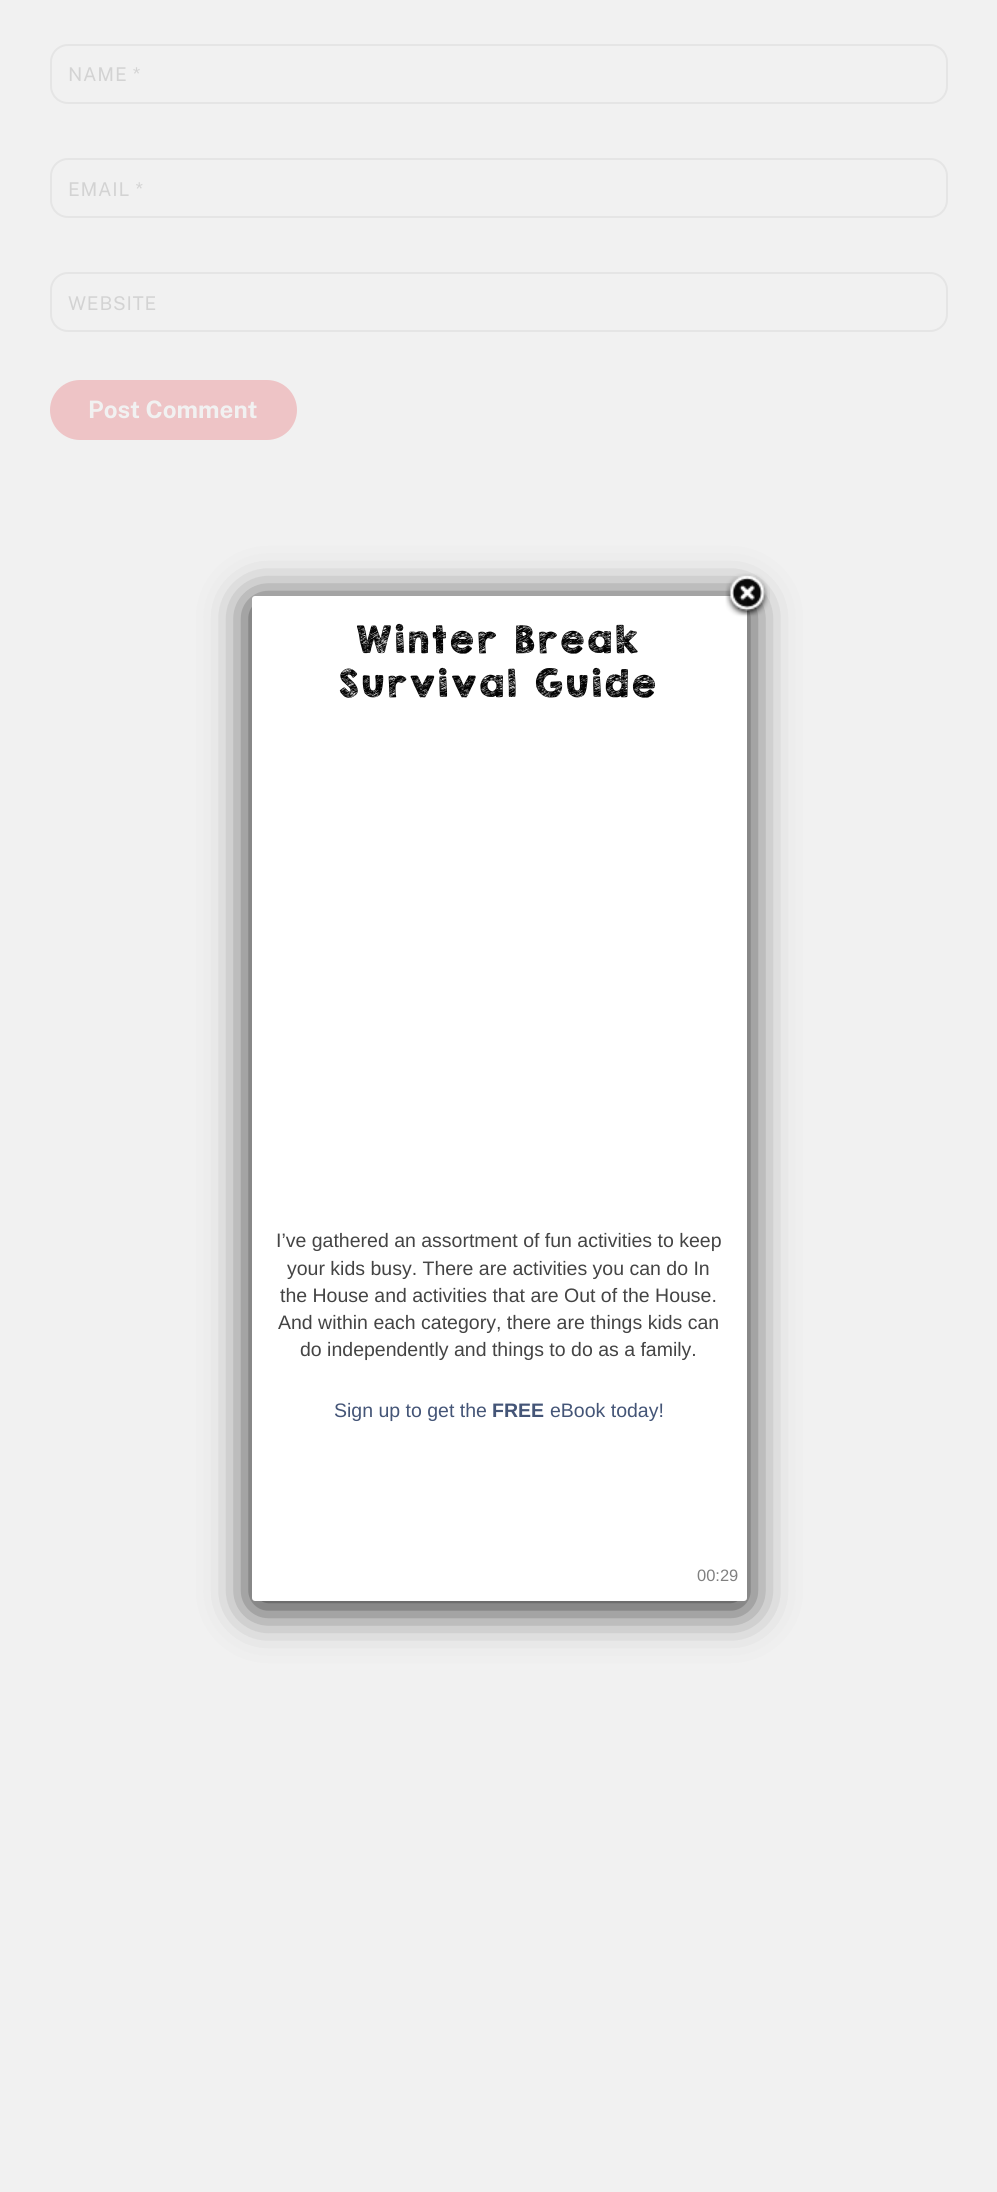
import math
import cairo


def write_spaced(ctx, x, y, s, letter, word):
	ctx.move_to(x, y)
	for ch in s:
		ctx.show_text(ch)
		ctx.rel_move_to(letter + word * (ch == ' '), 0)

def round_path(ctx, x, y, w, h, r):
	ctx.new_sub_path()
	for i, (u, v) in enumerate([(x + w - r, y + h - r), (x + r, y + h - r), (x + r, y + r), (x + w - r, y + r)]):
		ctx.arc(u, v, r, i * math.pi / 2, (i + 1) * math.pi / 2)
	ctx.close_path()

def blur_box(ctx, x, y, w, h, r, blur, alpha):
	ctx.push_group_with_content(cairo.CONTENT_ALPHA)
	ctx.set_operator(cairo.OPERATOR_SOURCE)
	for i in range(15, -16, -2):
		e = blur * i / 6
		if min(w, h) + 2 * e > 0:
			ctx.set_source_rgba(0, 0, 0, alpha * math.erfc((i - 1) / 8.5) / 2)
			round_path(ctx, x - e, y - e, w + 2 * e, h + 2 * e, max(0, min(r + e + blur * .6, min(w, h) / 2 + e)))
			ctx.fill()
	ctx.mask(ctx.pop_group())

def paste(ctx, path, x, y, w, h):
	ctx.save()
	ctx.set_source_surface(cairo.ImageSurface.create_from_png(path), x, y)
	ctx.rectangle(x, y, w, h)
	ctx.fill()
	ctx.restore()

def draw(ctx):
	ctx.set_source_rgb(0.945, 0.945, 0.945)
	ctx.paint()
	round_path(ctx, 51, 45, 896, 58, 17)
	ctx.set_source_rgb(0.898, 0.898, 0.898)
	ctx.stroke()
	ctx.select_font_face('Public Sans')
	ctx.set_font_size(19)
	ctx.set_source_rgb(0.827, 0.827, 0.827)
	write_spaced(ctx, 68, 81, 'NAME *', 0.75, 0)
	round_path(ctx, 51, 159, 896, 58, 17)
	ctx.set_source_rgb(0.898, 0.898, 0.898)
	ctx.stroke()
	ctx.set_source_rgb(0.827, 0.827, 0.827)
	write_spaced(ctx, 68, 196, 'EMAIL *', 0.75, 0)
	round_path(ctx, 51, 273, 896, 58, 17)
	ctx.set_source_rgb(0.898, 0.898, 0.898)
	ctx.stroke()
	ctx.set_source_rgb(0.827, 0.827, 0.827)
	write_spaced(ctx, 68, 310, 'WEBSITE', 0.75, 0)
	ctx.set_source_rgb(0.933, 0.769, 0.776)
	round_path(ctx, 50, 380, 247, 60, 30)
	ctx.fill()
	ctx.select_font_face('Public Sans', cairo.FONT_SLANT_NORMAL, cairo.FONT_WEIGHT_BOLD)
	ctx.set_font_size(24)
	ctx.set_source_rgb(0.945, 0.945, 0.945)
	ctx.move_to(88, 418)
	ctx.show_text('Post Comment')
	ctx.set_source_rgb(0.125, 0.125, 0.125)
	blur_box(ctx, 252, 602, 495, 1005, 3, 22.5, 1)
	ctx.set_source_rgb(1, 1, 1)
	round_path(ctx, 252, 596, 495, 1005, 3)
	ctx.fill()
	paste(ctx, 'media/1.png', 725, 573, 45, 44)
	ctx.select_font_face('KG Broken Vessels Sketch')
	ctx.set_font_size(37)
	ctx.set_source_rgb(0, 0, 0)
	write_spaced(ctx, 356, 653, 'Winter Break', 3, 0)
	write_spaced(ctx, 339, 697, 'Survival Guide', 3, 0)
	ctx.select_font_face('Liberation Sans')
	ctx.set_font_size(19.5)
	ctx.set_source_rgb(0.267, 0.267, 0.267)
	for x, y, s in [
		(276, 1247, 'I’ve gathered an assortment of fun activities to keep'),
		(287, 1275, 'your kids busy. There are activities you can do In'),
		(280, 1302, 'the House and activities that are Out of the House.'),
		(278, 1329, 'And within each category, there are things kids can'),
		(300, 1356, 'do independently and things to do as a family.'),
	]:
		ctx.move_to(x, y)
		ctx.show_text(s)
	ctx.set_source_rgb(0.267, 0.333, 0.467)
	ctx.move_to(334, 1417)
	ctx.show_text('Sign up to get the')
	ctx.select_font_face('Liberation Sans', cairo.FONT_SLANT_NORMAL, cairo.FONT_WEIGHT_BOLD)
	ctx.move_to(492, 1417)
	ctx.show_text('FREE')
	ctx.select_font_face('Liberation Sans')
	ctx.move_to(550, 1417)
	ctx.show_text('eBook today!')
	ctx.set_font_size(16.5)
	ctx.set_source_rgb(0.502, 0.502, 0.502)
	ctx.move_to(697, 1581)
	ctx.show_text('00:29')


surface = cairo.ImageSurface(cairo.FORMAT_RGB24, 997, 2192)
ctx = cairo.Context(surface)
options = cairo.FontOptions()
options.set_hint_metrics(cairo.HINT_METRICS_OFF)
options.set_hint_style(cairo.HINT_STYLE_NONE)
ctx.set_font_options(options)
ctx.set_miter_limit(4)
draw(ctx)
surface.write_to_png('image.png')
